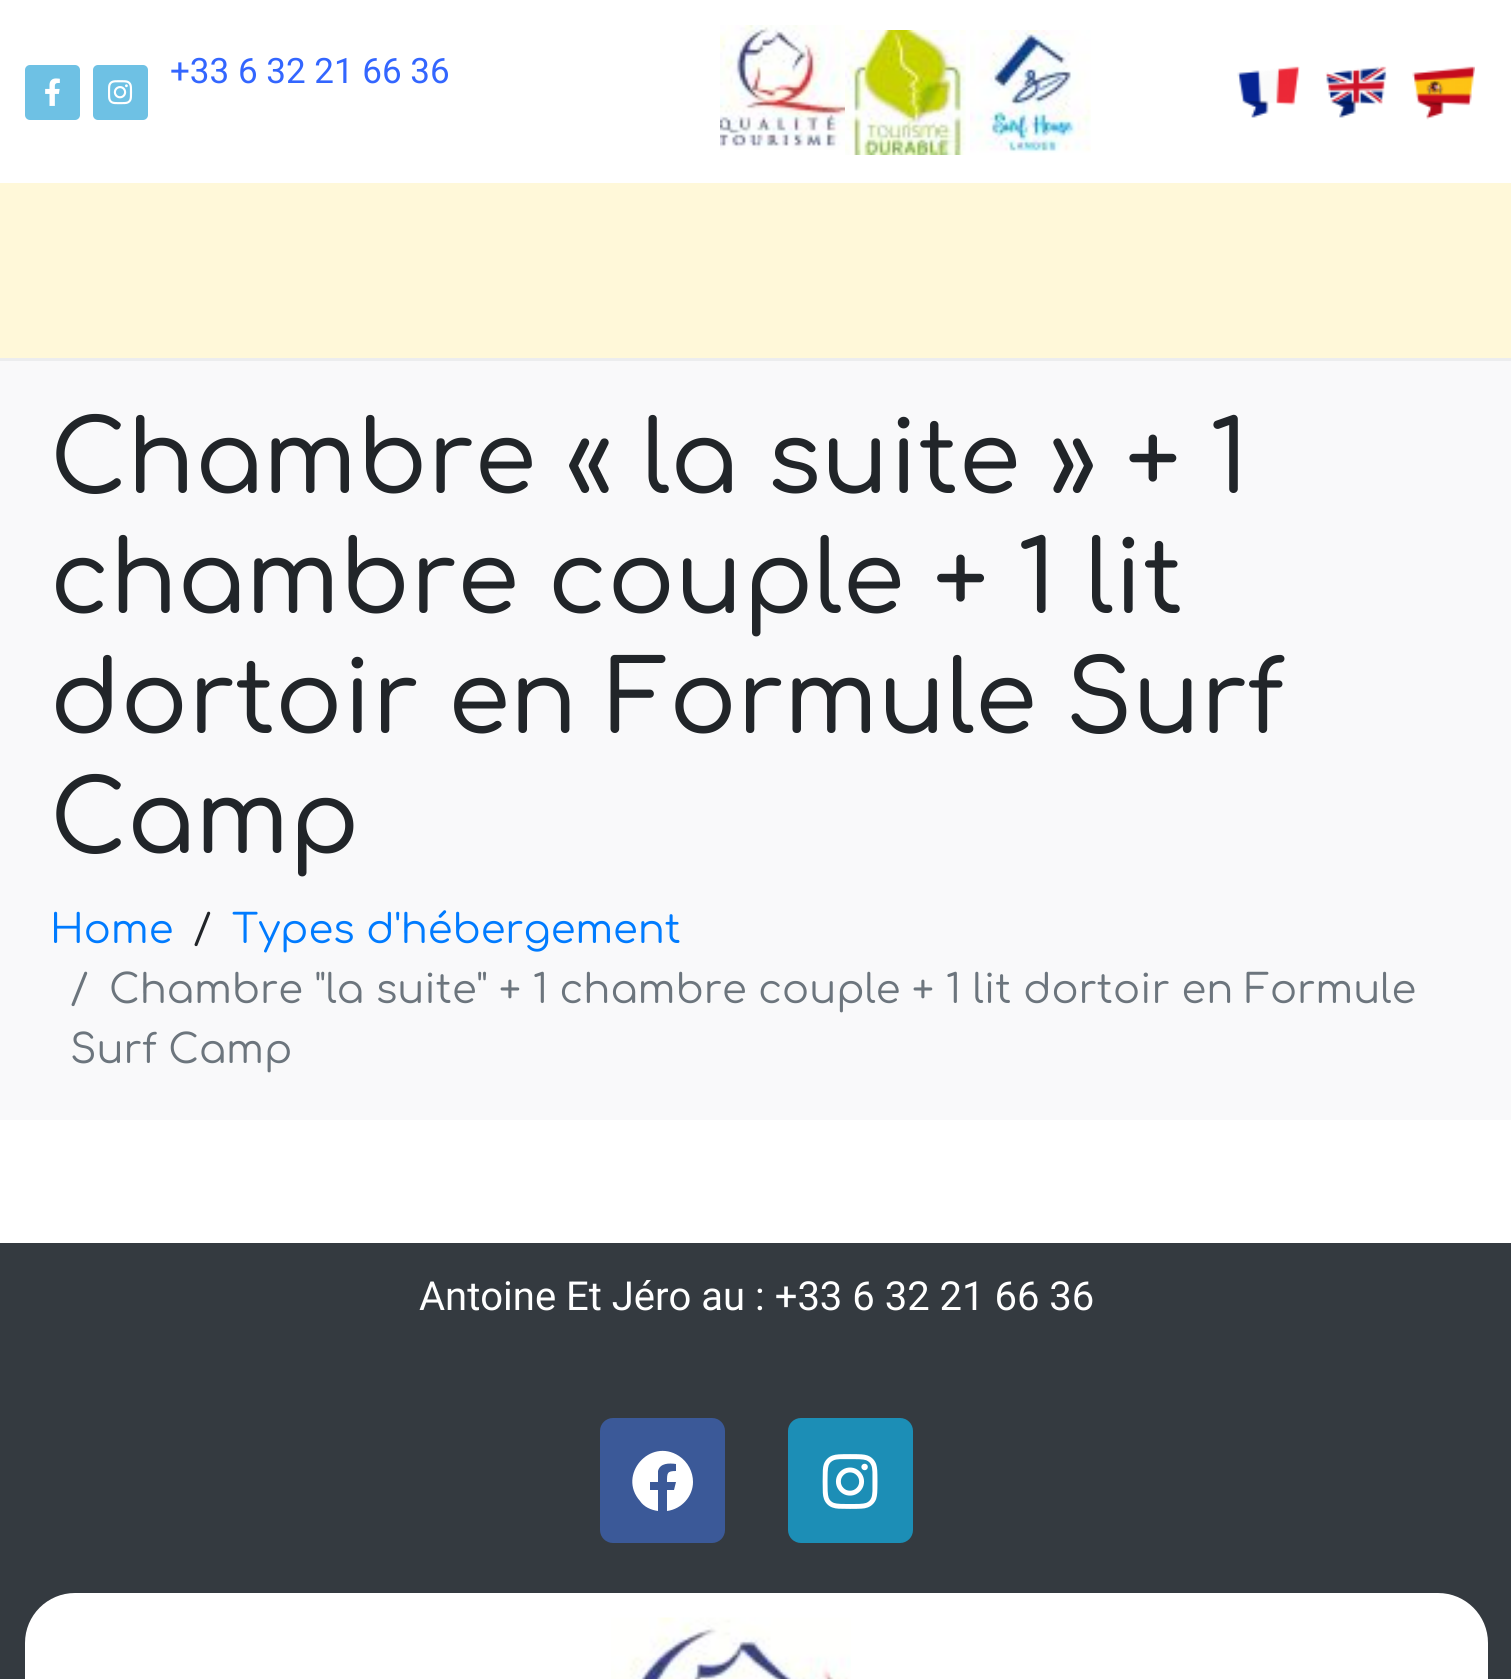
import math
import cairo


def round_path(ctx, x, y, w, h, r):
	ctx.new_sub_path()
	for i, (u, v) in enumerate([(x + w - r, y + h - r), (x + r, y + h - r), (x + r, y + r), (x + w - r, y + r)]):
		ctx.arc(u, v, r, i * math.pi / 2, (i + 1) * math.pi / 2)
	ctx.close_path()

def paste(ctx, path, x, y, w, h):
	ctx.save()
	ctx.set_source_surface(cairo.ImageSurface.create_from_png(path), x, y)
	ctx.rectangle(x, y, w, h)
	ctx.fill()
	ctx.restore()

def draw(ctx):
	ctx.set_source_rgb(1, 1, 1)
	ctx.paint()
	ctx.set_source_rgb(0.431, 0.757, 0.894)
	round_path(ctx, 25, 65, 55, 55, 5)
	ctx.fill()
	paste(ctx, 'media/1.png', 45, 78, 15, 28)
	round_path(ctx, 93, 65, 55, 55, 5)
	ctx.fill()
	paste(ctx, 'media/2.png', 108, 80, 25, 25)
	ctx.select_font_face('Roboto')
	ctx.set_font_size(35)
	ctx.set_source_rgb(0.2, 0.4, 1)
	ctx.move_to(170, 83)
	ctx.show_text('+33 6 32 21 66 36')
	paste(ctx, 'media/3.png', 720, 25, 125, 125)
	paste(ctx, 'media/4.png', 845, 30, 121, 125)
	paste(ctx, 'media/5.png', 970, 30, 121, 123)
	paste(ctx, 'media/6.png', 1237, 66, 63, 52)
	paste(ctx, 'media/7.png', 1325, 66, 62, 52)
	paste(ctx, 'media/8.png', 1412, 66, 63, 54)
	ctx.set_source_rgb(1, 0.969, 0.851)
	ctx.rectangle(0, 183, 1511, 175)
	ctx.fill()
	ctx.set_source_rgb(0.925, 0.929, 0.933)
	ctx.rectangle(0, 358, 1511, 3)
	ctx.fill()
	ctx.set_source_rgb(0.973, 0.976, 0.98)
	ctx.rectangle(0, 361, 1511, 759)
	ctx.fill()
	ctx.select_font_face('Comfortaa Medium')
	ctx.set_font_size(100)
	ctx.set_source_rgb(0.129, 0.145, 0.161)
	for x, y, s in [
		(50, 493, 'Chambre « la suite » + 1'),
		(50, 613, 'chambre couple + 1 lit'),
		(50, 733, 'dortoir en Formule Surf'),
		(50, 853, 'Camp'),
	]:
		ctx.move_to(x, y)
		ctx.show_text(s)
	ctx.select_font_face('Comfortaa')
	ctx.set_font_size(40)
	ctx.set_source_rgb(0, 0.482, 1)
	ctx.move_to(50, 943)
	ctx.show_text('Home')
	ctx.set_source_rgb(0.129, 0.145, 0.161)
	ctx.move_to(193, 943)
	ctx.show_text('/')
	ctx.set_source_rgb(0, 0.482, 1)
	ctx.move_to(232, 943)
	ctx.show_text('Types d\'hébergement')
	ctx.set_source_rgb(0.424, 0.459, 0.49)
	for x, y, s in [
		(70, 1003, '/'),
		(109, 1003, 'Chambre "la suite" + 1 chambre couple + 1 lit dortoir en Formule'),
		(70, 1063, 'Surf Camp'),
	]:
		ctx.move_to(x, y)
		ctx.show_text(s)
	ctx.set_source_rgb(0.204, 0.227, 0.251)
	ctx.rectangle(0, 1243, 1511, 436)
	ctx.fill()
	ctx.select_font_face('Roboto')
	ctx.set_source_rgb(1, 1, 1)
	ctx.move_to(419, 1310)
	ctx.show_text('Antoine Et Jéro au : +33 6 32 21 66 36')
	ctx.set_source_rgb(0.231, 0.349, 0.596)
	round_path(ctx, 600, 1418, 125, 125, 13)
	ctx.fill()
	ctx.set_source_rgb(1, 1, 1)
	ctx.new_path()
	ctx.move_to(693, 1482)
	ctx.curve_to(693, 1496, 682, 1509, 667, 1511)
	ctx.line_to(667, 1490)
	ctx.line_to(674, 1490)
	ctx.line_to(676, 1482)
	ctx.line_to(667, 1482)
	ctx.curve_to(667, 1473, 667, 1471, 676, 1471)
	ctx.line_to(676, 1464)
	ctx.curve_to(669, 1463, 660, 1463, 658, 1471)
	ctx.line_to(658, 1482)
	ctx.line_to(650, 1482)
	ctx.line_to(650, 1490)
	ctx.line_to(658, 1490)
	ctx.line_to(658, 1511)
	ctx.curve_to(651, 1510, 644, 1507, 640, 1501)
	ctx.curve_to(617, 1475, 650, 1437, 679, 1456)
	ctx.curve_to(688, 1462, 693, 1472, 693, 1482)
	ctx.close_path()
	ctx.fill()
	ctx.set_source_rgb(0.11, 0.557, 0.714)
	round_path(ctx, 788, 1418, 125, 125, 13)
	ctx.fill()
	paste(ctx, 'media/9.png', 822, 1454, 56, 55)
	ctx.set_source_rgb(1, 1, 1)
	round_path(ctx, 25, 1593, 1463, 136, 50)
	ctx.fill()
	paste(ctx, 'media/10.png', 611, 1617, 240, 62)


surface = cairo.ImageSurface(cairo.FORMAT_RGB24, 1511, 1679)
ctx = cairo.Context(surface)
options = cairo.FontOptions()
options.set_hint_metrics(cairo.HINT_METRICS_OFF)
options.set_hint_style(cairo.HINT_STYLE_NONE)
ctx.set_font_options(options)
ctx.set_miter_limit(4)
draw(ctx)
surface.write_to_png('image.png')
